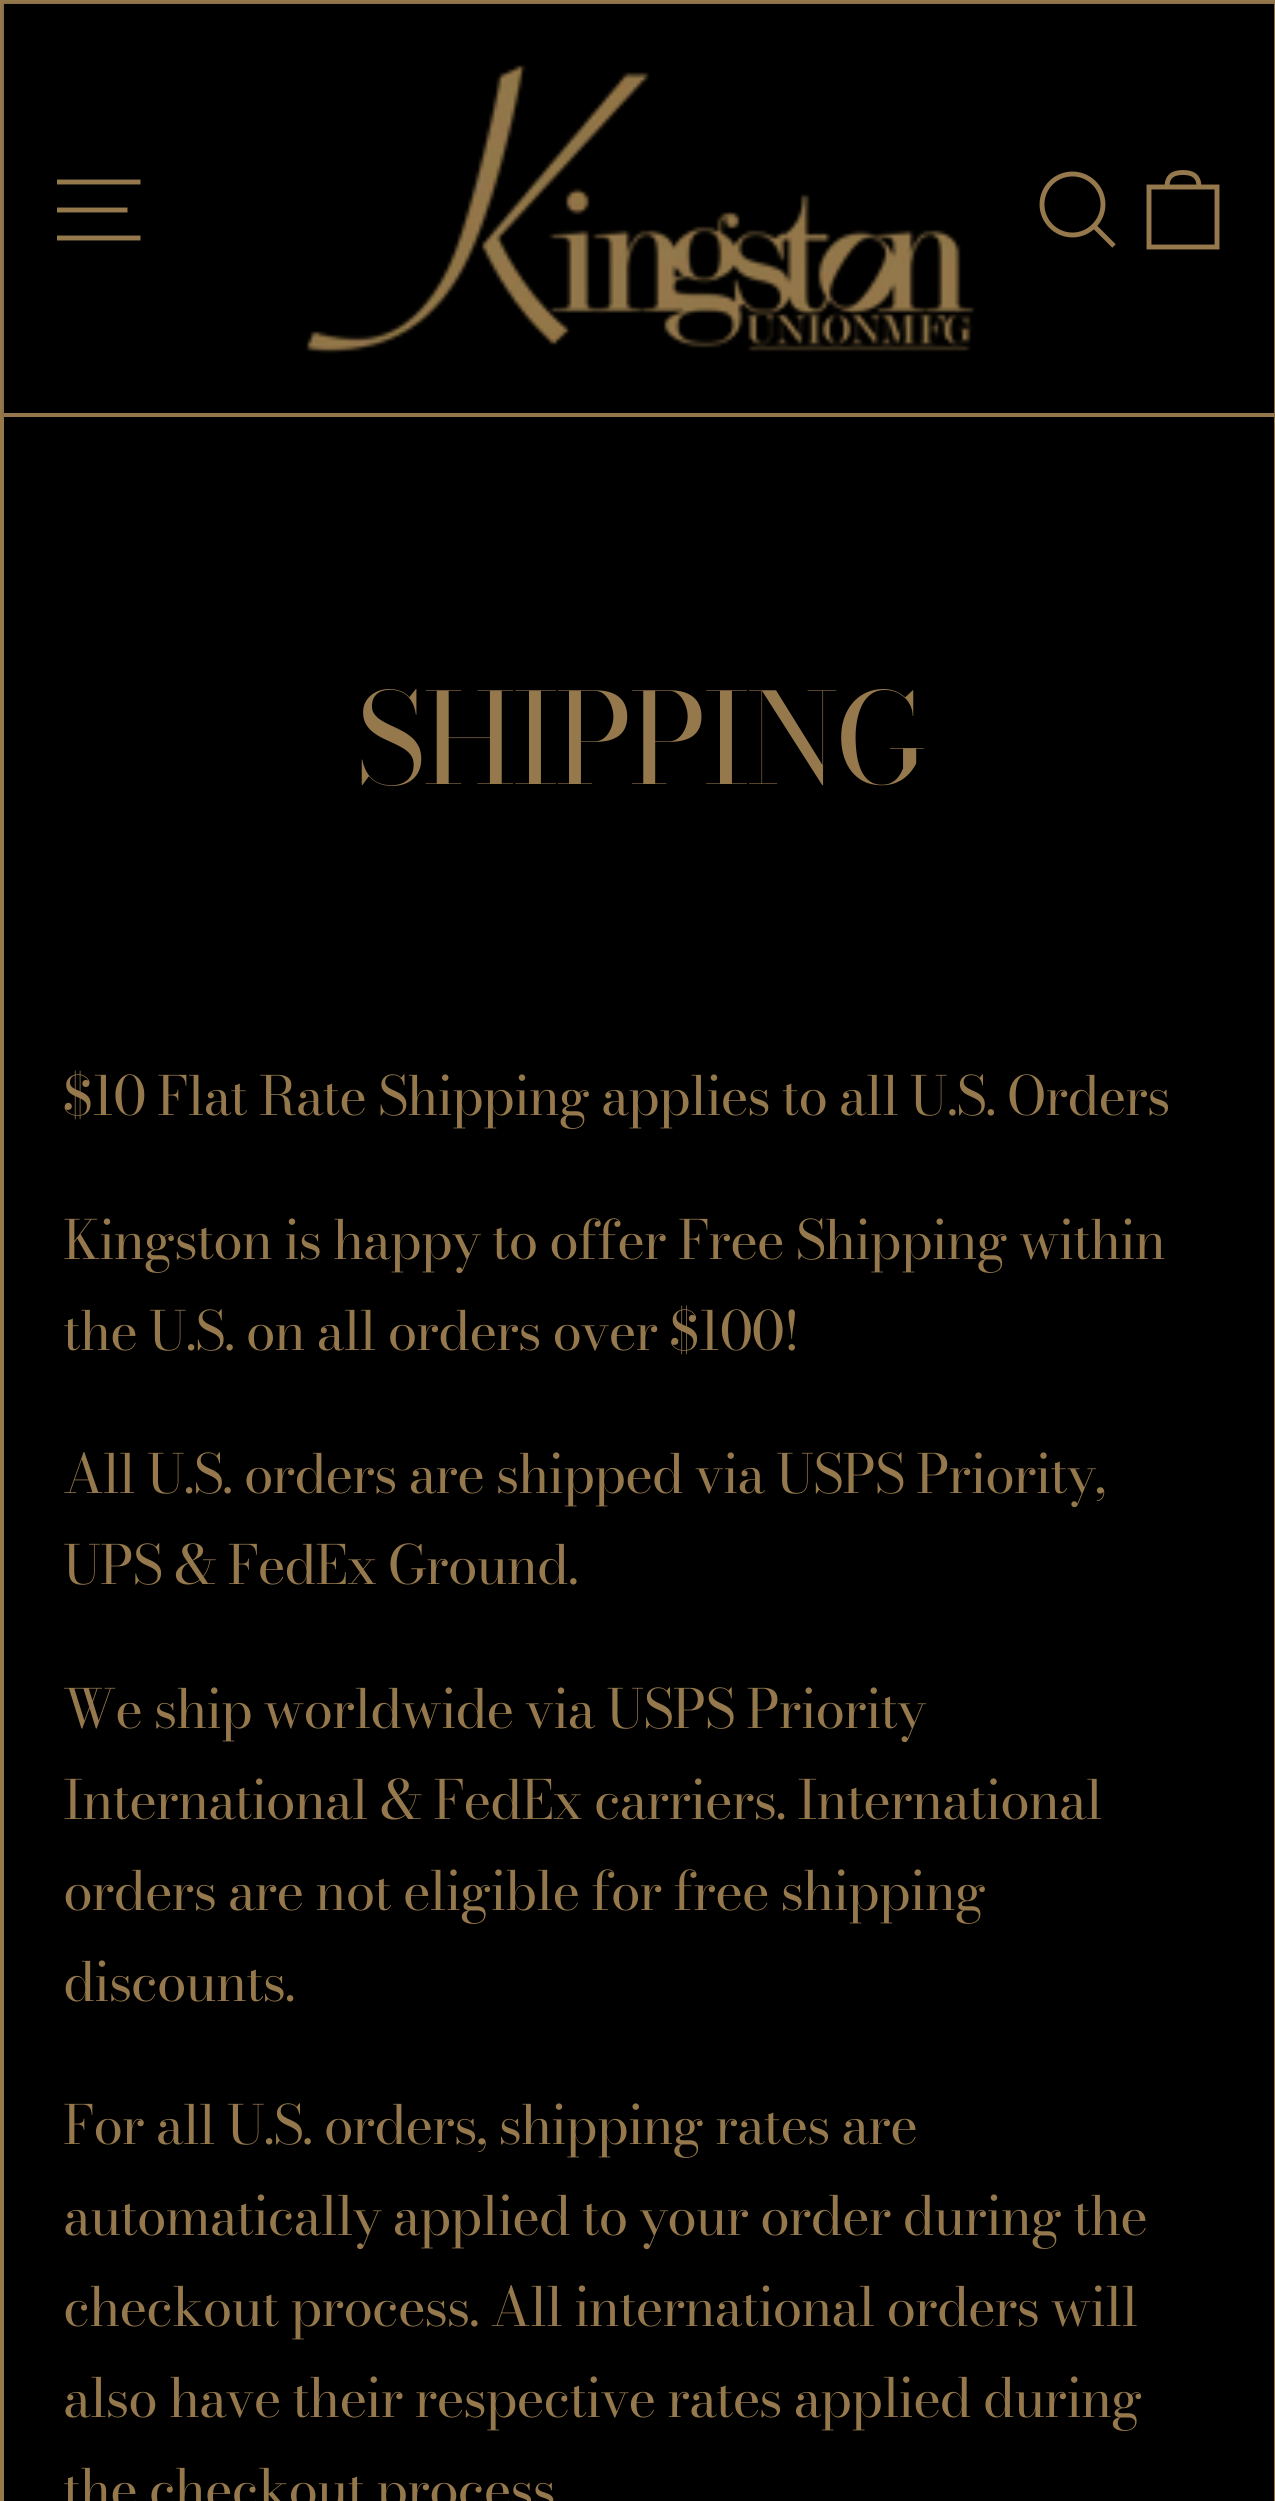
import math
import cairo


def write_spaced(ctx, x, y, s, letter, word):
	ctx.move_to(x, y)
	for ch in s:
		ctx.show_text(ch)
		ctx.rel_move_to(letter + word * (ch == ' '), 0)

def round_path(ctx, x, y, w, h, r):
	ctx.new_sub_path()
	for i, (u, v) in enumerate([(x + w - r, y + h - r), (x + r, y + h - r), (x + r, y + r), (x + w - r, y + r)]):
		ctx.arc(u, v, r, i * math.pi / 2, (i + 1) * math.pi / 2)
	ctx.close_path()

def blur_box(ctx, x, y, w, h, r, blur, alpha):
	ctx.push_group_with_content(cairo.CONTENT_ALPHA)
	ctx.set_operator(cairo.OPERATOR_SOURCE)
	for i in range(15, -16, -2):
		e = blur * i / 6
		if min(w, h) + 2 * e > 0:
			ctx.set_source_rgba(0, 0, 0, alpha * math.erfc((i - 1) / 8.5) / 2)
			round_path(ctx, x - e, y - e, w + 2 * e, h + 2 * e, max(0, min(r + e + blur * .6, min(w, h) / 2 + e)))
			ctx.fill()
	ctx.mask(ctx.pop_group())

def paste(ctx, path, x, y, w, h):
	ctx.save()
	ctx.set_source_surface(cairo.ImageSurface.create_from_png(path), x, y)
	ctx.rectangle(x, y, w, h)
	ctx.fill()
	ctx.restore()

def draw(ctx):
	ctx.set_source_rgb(0, 0, 0)
	ctx.paint()
	ctx.rectangle(2, 2, 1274, 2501)
	ctx.set_source_rgb(0.584, 0.471, 0.298)
	ctx.set_line_width(4)
	ctx.stroke()
	ctx.save()
	ctx.set_fill_rule(cairo.FILL_RULE_EVEN_ODD)
	ctx.new_path()
	ctx.move_to(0, 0)
	ctx.line_to(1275, 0)
	ctx.line_to(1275, 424)
	ctx.line_to(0, 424)
	ctx.close_path()
	ctx.move_to(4, 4)
	ctx.line_to(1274, 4)
	ctx.line_to(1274, 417)
	ctx.line_to(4, 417)
	ctx.close_path()
	ctx.clip()
	ctx.set_source_rgb(0, 0, 0)
	blur_box(ctx, 4, 4, 1270, 413, 0, 2, 0.2)
	ctx.restore()
	ctx.set_source_rgb(0.58, 0.467, 0.29)
	ctx.rectangle(4, 413, 1270, 4)
	ctx.fill()
	ctx.new_path()
	ctx.move_to(57, 182)
	ctx.line_to(140.5, 182)
	ctx.move_to(57, 210)
	ctx.line_to(127.5, 210)
	ctx.move_to(57, 238)
	ctx.line_to(140.5, 238)
	ctx.set_source_rgb(0.584, 0.471, 0.298)
	ctx.set_line_width(4.9)
	ctx.stroke()
	paste(ctx, 'media/1.png', 305, 63, 670, 291)
	ctx.new_path()
	ctx.move_to(1103, 204.5)
	ctx.curve_to(1103, 221, 1089, 235, 1072.5, 235)
	ctx.curve_to(1055.5, 235, 1042, 221, 1042, 204.5)
	ctx.curve_to(1042, 187.5, 1055.5, 174, 1072.5, 174)
	ctx.curve_to(1089, 174, 1103, 187.5, 1103, 204.5)
	ctx.close_path()
	ctx.move_to(1114, 246)
	ctx.line_to(1094.5, 226.5)
	ctx.stroke()
	ctx.new_path()
	ctx.move_to(1149, 187)
	ctx.line_to(1217, 187)
	ctx.line_to(1217, 247)
	ctx.line_to(1149, 247)
	ctx.close_path()
	ctx.stroke()
	ctx.new_path()
	ctx.move_to(1167, 187)
	ctx.curve_to(1167, 175.5, 1174, 172.5, 1183, 172.5)
	ctx.curve_to(1192, 172.5, 1199, 175.5, 1199, 187)
	ctx.stroke()
	ctx.select_font_face('Bodoni Moda')
	ctx.set_font_size(125)
	write_spaced(ctx, 356, 784, 'SHIPPING', -3, 0)
	ctx.select_font_face('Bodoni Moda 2')
	ctx.set_font_size(53.55)
	for x, y, s in [
		(63, 1115, '$10 Flat Rate Shipping applies to all U.S. Orders'),
		(63, 1259, 'Kingston is happy to offer Free Shipping within'),
		(63, 1350, 'the U.S. on all orders over $100!'),
		(63, 1493, 'All U.S. orders are shipped via USPS Priority,'),
		(63, 1584, 'UPS & FedEx Ground.'),
		(63, 1728, 'We ship worldwide via USPS Priority'),
		(63, 1819, 'International & FedEx carriers. International'),
		(63, 1910, 'orders are not eligible for free shipping'),
		(63, 2001, 'discounts.'),
		(63, 2144, 'For all U.S. orders, shipping rates are'),
		(63, 2235, 'automatically applied to your order during the'),
		(63, 2326, 'checkout process. All international orders will'),
		(63, 2417, 'also have their respective rates applied during'),
		(63, 2508, 'the checkout process'),
	]:
		write_spaced(ctx, x, y, s, -1.35, 0)


surface = cairo.ImageSurface(cairo.FORMAT_RGB24, 1275, 2501)
ctx = cairo.Context(surface)
options = cairo.FontOptions()
options.set_hint_metrics(cairo.HINT_METRICS_OFF)
options.set_hint_style(cairo.HINT_STYLE_NONE)
ctx.set_font_options(options)
ctx.set_miter_limit(4)
draw(ctx)
surface.write_to_png('image.png')
